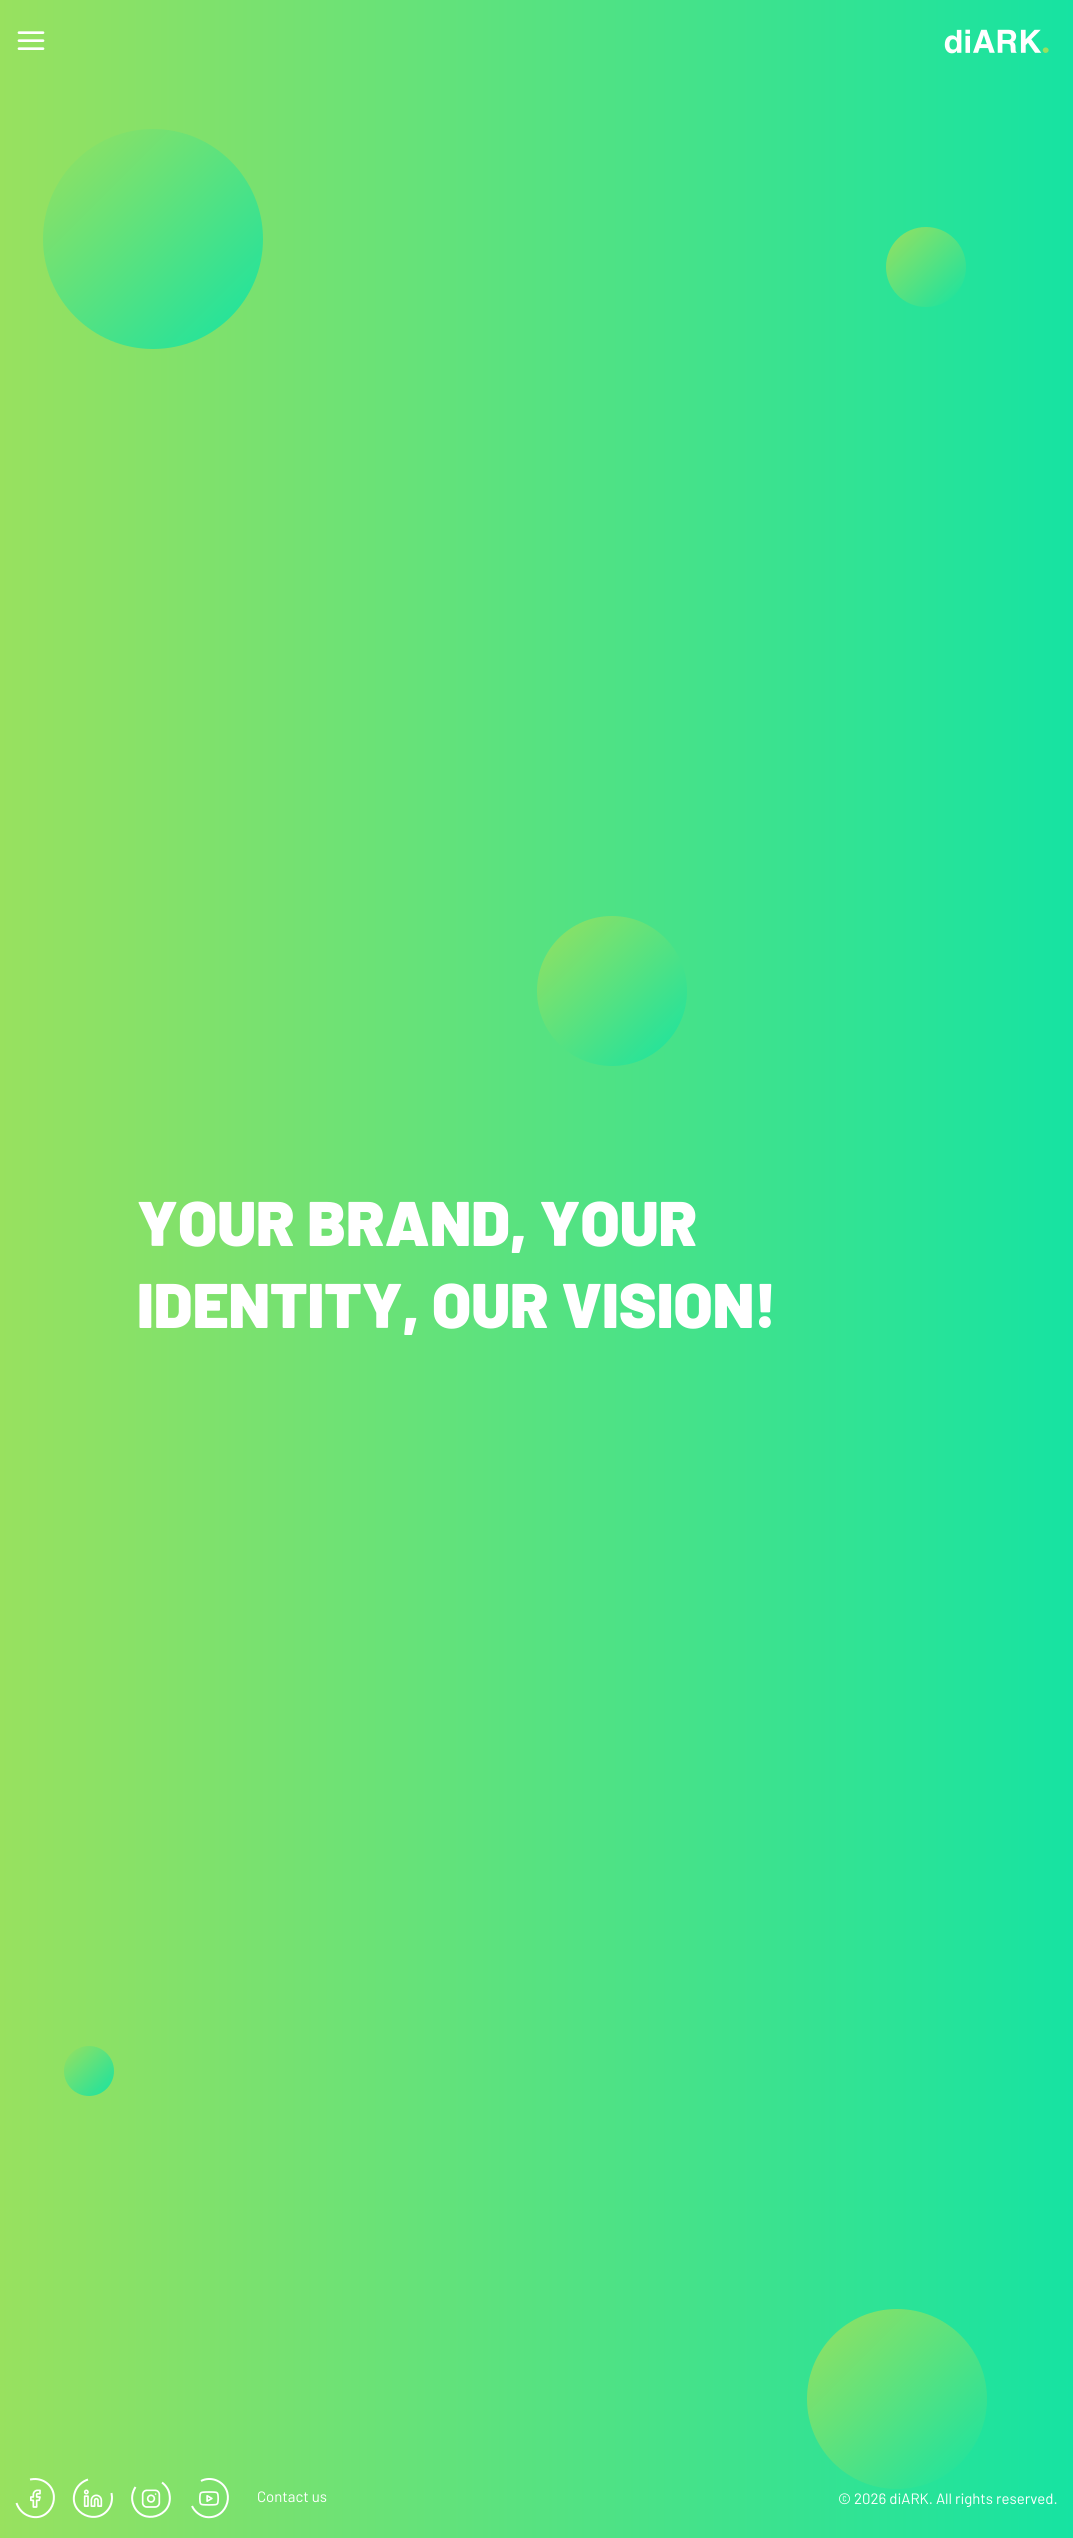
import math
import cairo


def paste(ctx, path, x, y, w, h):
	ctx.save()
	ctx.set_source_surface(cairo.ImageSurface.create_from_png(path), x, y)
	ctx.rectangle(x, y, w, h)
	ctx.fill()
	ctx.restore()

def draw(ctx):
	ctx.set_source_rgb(1, 1, 1)
	ctx.paint()
	gradient = cairo.LinearGradient(0, 1269, 1073, 1269)
	gradient.add_color_stop_rgba(0, 0.596, 0.882, 0.373, 1)
	gradient.add_color_stop_rgba(1, 0.086, 0.89, 0.635, 1)
	ctx.set_source(gradient)
	ctx.rectangle(0, 0, 1073, 2538)
	ctx.fill()
	paste(ctx, 'media/1.png', 17, 31, 28, 19)
	paste(ctx, 'media/2.png', 944, 29, 105, 25)
	gradient = cairo.LinearGradient(43, 129, 263, 349)
	gradient.add_color_stop_rgba(0, 0.596, 0.882, 0.373, 1)
	gradient.add_color_stop_rgba(1, 0.086, 0.89, 0.635, 1)
	ctx.set_source(gradient)
	ctx.arc(153, 239, 110, 0, 2 * math.pi)
	ctx.fill()
	gradient = cairo.LinearGradient(886, 227, 966, 307)
	gradient.add_color_stop_rgba(0, 0.596, 0.882, 0.373, 1)
	gradient.add_color_stop_rgba(1, 0.086, 0.89, 0.635, 1)
	ctx.set_source(gradient)
	ctx.arc(926, 267, 40, 0, 2 * math.pi)
	ctx.fill()
	gradient = cairo.LinearGradient(537, 916, 687, 1066)
	gradient.add_color_stop_rgba(0, 0.596, 0.882, 0.373, 1)
	gradient.add_color_stop_rgba(1, 0.086, 0.89, 0.635, 1)
	ctx.set_source(gradient)
	ctx.arc(612, 991, 75, 0, 2 * math.pi)
	ctx.fill()
	gradient = cairo.LinearGradient(64, 2046, 114, 2096)
	gradient.add_color_stop_rgba(0, 0.596, 0.882, 0.373, 1)
	gradient.add_color_stop_rgba(1, 0.086, 0.89, 0.635, 1)
	ctx.set_source(gradient)
	ctx.arc(89, 2071, 25, 0, 2 * math.pi)
	ctx.fill()
	gradient = cairo.LinearGradient(807, 2309, 987, 2489)
	gradient.add_color_stop_rgba(0, 0.596, 0.882, 0.373, 1)
	gradient.add_color_stop_rgba(1, 0.086, 0.89, 0.635, 1)
	ctx.set_source(gradient)
	ctx.arc(897, 2399, 90, 0, 2 * math.pi)
	ctx.fill()
	ctx.select_font_face('Barlow Black')
	ctx.set_font_size(63)
	ctx.set_source_rgb(1, 1, 1)
	ctx.move_to(137, 1246)
	ctx.show_text('YOUR BRAND, YOUR')
	ctx.move_to(137, 1328)
	ctx.show_text('IDENTITY, OUR VISION!')
	paste(ctx, 'media/3.png', 30, 2489, 11, 19)
	ctx.new_path()
	ctx.move_to(30, 2479.5)
	ctx.curve_to(35, 2478.5, 40, 2479, 44.5, 2481.5)
	ctx.curve_to(64, 2493, 50.5, 2523.5, 29, 2516)
	ctx.curve_to(23, 2514, 18.5, 2509, 16.5, 2503)
	ctx.stroke()
	paste(ctx, 'media/4.png', 83, 2489, 20, 18)
	ctx.new_path()
	ctx.move_to(111.5, 2493)
	ctx.curve_to(112.5, 2498, 112, 2503, 109.5, 2507.5)
	ctx.curve_to(98, 2527, 67.5, 2513.5, 75, 2492)
	ctx.curve_to(77, 2486, 82, 2481.5, 88, 2479.5)
	ctx.stroke()
	paste(ctx, 'media/5.png', 141, 2489, 20, 19)
	ctx.new_path()
	ctx.move_to(162, 2482.5)
	ctx.curve_to(166, 2485.5, 169, 2490, 169.5, 2494.5)
	ctx.curve_to(173.5, 2517, 141.5, 2526, 133.5, 2505)
	ctx.curve_to(131, 2499, 132, 2492.5, 135.5, 2487)
	ctx.stroke()
	paste(ctx, 'media/6.png', 199, 2491, 20, 15)
	ctx.new_path()
	ctx.move_to(201, 2481)
	ctx.curve_to(205.5, 2478.5, 211, 2478.5, 215.5, 2480)
	ctx.curve_to(237, 2488, 228.5, 2520, 206, 2517)
	ctx.curve_to(200, 2516, 194.5, 2511.5, 192, 2506)
	ctx.stroke()
	ctx.select_font_face('Barlow')
	ctx.set_font_size(15)
	ctx.move_to(257, 2502)
	ctx.show_text('Contact us')
	ctx.move_to(838, 2504)
	ctx.show_text('© 2026 diARK. All rights reserved.')


surface = cairo.ImageSurface(cairo.FORMAT_RGB24, 1073, 2538)
ctx = cairo.Context(surface)
options = cairo.FontOptions()
options.set_hint_metrics(cairo.HINT_METRICS_OFF)
options.set_hint_style(cairo.HINT_STYLE_NONE)
ctx.set_font_options(options)
ctx.set_miter_limit(4)
draw(ctx)
surface.write_to_png('image.png')
